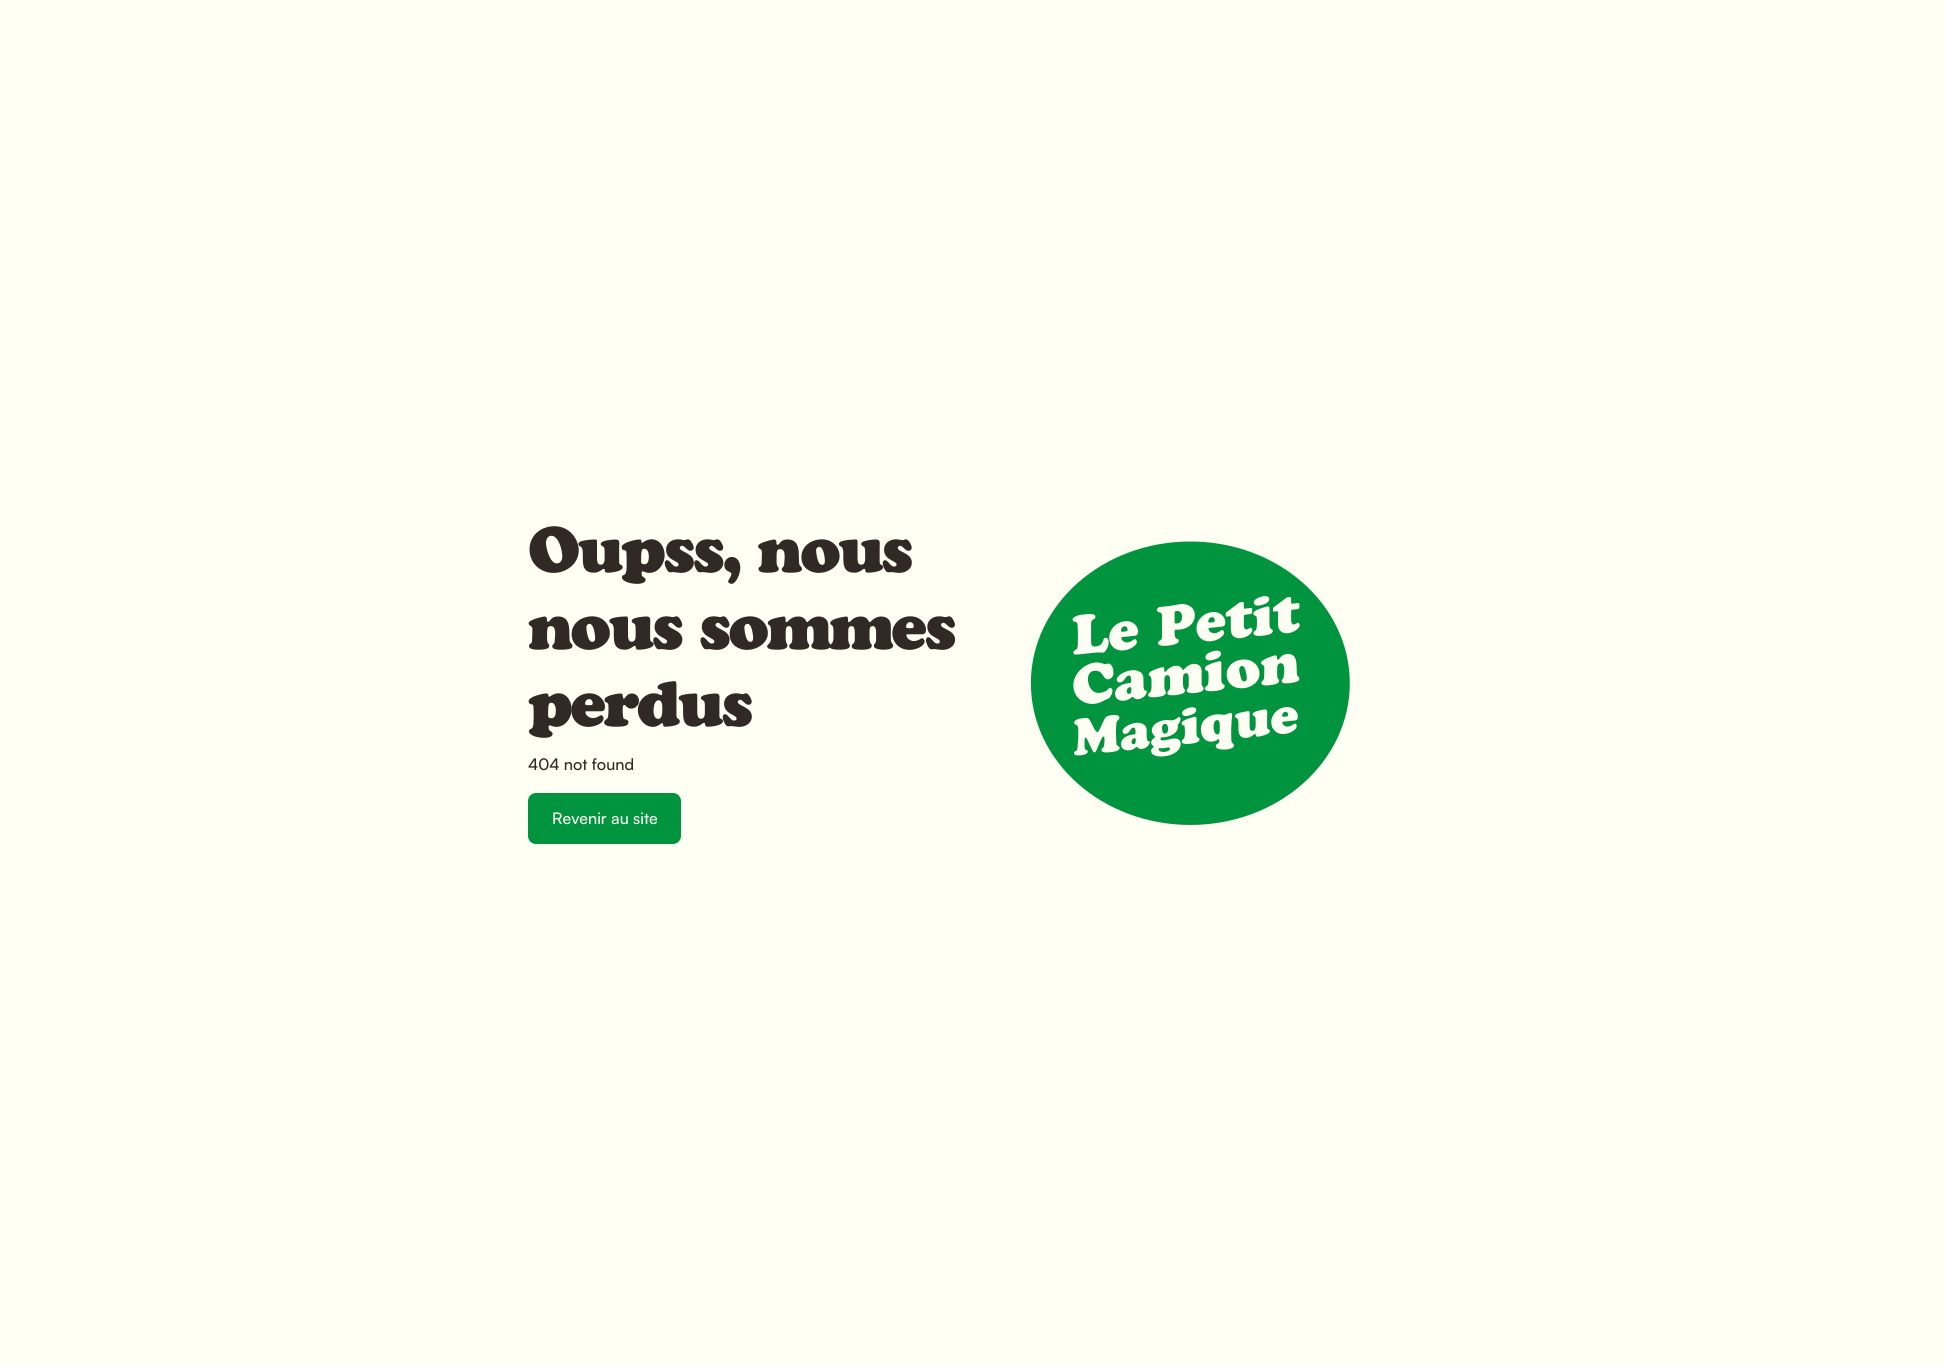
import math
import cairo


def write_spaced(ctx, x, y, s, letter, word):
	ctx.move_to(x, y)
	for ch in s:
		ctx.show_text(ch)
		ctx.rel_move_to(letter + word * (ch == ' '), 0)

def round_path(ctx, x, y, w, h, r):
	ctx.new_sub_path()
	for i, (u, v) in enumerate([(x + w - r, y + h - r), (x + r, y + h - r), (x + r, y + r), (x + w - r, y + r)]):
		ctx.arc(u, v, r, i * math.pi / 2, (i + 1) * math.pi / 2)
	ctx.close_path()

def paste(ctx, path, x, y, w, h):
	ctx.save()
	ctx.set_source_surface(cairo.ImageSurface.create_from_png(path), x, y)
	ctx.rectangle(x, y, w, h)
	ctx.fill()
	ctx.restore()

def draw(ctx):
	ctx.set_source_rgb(1, 1, 0.957)
	ctx.paint()
	ctx.select_font_face('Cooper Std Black')
	ctx.set_font_size(64)
	ctx.set_source_rgb(0.192, 0.161, 0.141)
	for x, y, s in [
		(528, 572, 'Oupss, nous'),
		(528, 649, 'nous sommes'),
		(528, 726, 'perdus'),
	]:
		write_spaced(ctx, x, y, s, -2.5, 0)
	ctx.select_font_face('Satoshi Medium')
	ctx.set_font_size(16)
	ctx.move_to(528, 770)
	ctx.show_text('404 not found')
	ctx.set_source_rgb(0, 0.58, 0.247)
	round_path(ctx, 528, 793, 153, 51, 8)
	ctx.fill()
	ctx.set_source_rgb(1, 1, 0.957)
	ctx.move_to(552, 824)
	ctx.show_text('Revenir au site')
	paste(ctx, 'media/1.png', 1030, 541, 320, 284)


surface = cairo.ImageSurface(cairo.FORMAT_RGB24, 1945, 1365)
ctx = cairo.Context(surface)
options = cairo.FontOptions()
options.set_hint_metrics(cairo.HINT_METRICS_OFF)
options.set_hint_style(cairo.HINT_STYLE_NONE)
ctx.set_font_options(options)
ctx.set_miter_limit(4)
draw(ctx)
surface.write_to_png('image.png')
